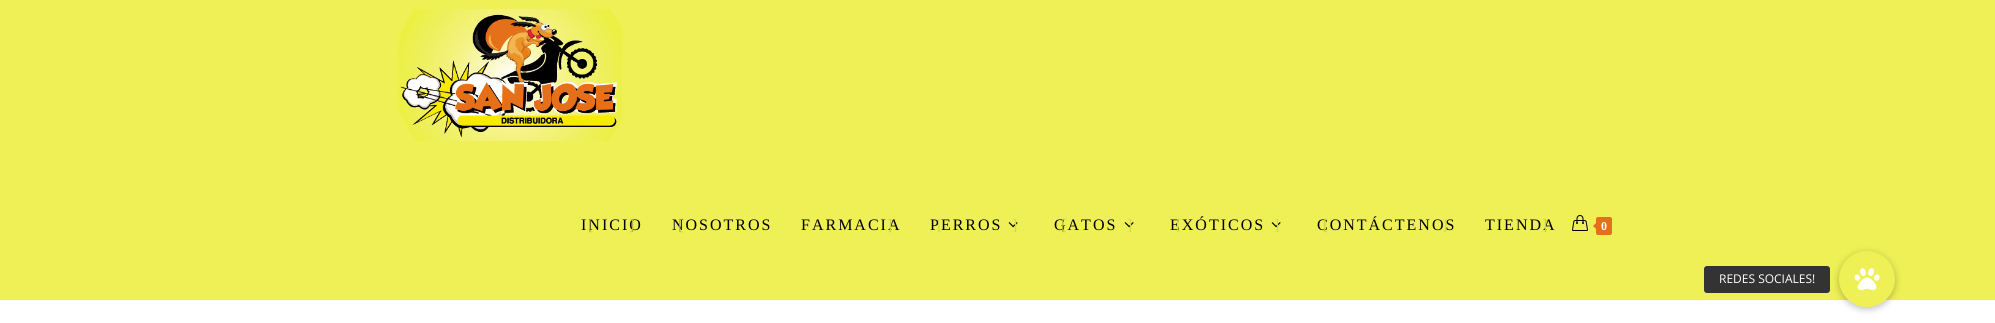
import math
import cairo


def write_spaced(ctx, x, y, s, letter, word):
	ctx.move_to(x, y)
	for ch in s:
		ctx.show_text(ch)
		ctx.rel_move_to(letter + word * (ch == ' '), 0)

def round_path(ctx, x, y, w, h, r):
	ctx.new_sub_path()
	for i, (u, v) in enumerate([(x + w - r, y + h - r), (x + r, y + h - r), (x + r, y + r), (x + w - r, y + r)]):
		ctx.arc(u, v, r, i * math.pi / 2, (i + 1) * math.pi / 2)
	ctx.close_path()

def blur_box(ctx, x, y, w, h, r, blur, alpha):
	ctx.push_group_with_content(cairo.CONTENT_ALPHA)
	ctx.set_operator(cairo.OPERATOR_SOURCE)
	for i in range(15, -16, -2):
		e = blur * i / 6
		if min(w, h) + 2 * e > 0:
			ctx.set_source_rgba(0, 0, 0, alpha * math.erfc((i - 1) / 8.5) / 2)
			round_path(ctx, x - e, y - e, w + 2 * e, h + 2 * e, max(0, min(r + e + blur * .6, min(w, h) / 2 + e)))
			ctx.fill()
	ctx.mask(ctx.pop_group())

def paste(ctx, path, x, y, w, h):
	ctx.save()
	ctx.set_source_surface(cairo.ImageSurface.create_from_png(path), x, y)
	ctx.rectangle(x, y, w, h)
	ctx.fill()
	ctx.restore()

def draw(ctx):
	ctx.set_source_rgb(1, 1, 1)
	ctx.paint()
	ctx.set_source_rgb(0.933, 0.941, 0.337)
	ctx.rectangle(0, 0, 1995, 300)
	ctx.fill()
	paste(ctx, 'media/1.png', 398, 9, 224, 132)
	ctx.select_font_face('Liberation Serif')
	ctx.set_font_size(16)
	ctx.set_source_rgb(0, 0, 0)
	write_spaced(ctx, 581, 230, 'INICIO', 2, 0)
	ctx.set_source_rgb(0.706, 0.714, 0.255)
	write_spaced(ctx, 588, 230, '[', 2, 0)
	write_spaced(ctx, 629, 230, ']', 2, 0)
	ctx.set_source_rgb(0, 0, 0)
	write_spaced(ctx, 672, 230, 'NOSOTROS', 2, 0)
	ctx.set_source_rgb(0.706, 0.714, 0.255)
	write_spaced(ctx, 678, 230, '[', 2, 0)
	ctx.set_source_rgb(0, 0, 0)
	write_spaced(ctx, 801, 230, 'FARMACIA', 2, 0)
	ctx.set_source_rgb(0.804, 0.812, 0.29)
	write_spaced(ctx, 887, 230, ']', 2, 0)
	ctx.set_source_rgb(0, 0, 0)
	write_spaced(ctx, 930, 230, 'PERROS', 2, 0)
	ctx.set_source_rgb(0.839, 0.847, 0.302)
	write_spaced(ctx, 937, 230, '[', 2, 0)
	paste(ctx, 'media/2.png', 1008, 222, 10, 6)
	write_spaced(ctx, 1012, 230, ']', 2, 0)
	ctx.set_source_rgb(0, 0, 0)
	write_spaced(ctx, 1054, 230, 'GATOS', 2, 0)
	ctx.set_source_rgb(0.706, 0.714, 0.255)
	write_spaced(ctx, 1061, 230, '[', 2, 0)
	paste(ctx, 'media/2.png', 1124, 222, 10, 6)
	ctx.set_source_rgb(0.839, 0.847, 0.302)
	write_spaced(ctx, 1127, 230, ']', 2, 0)
	ctx.set_source_rgb(0, 0, 0)
	write_spaced(ctx, 1170, 230, 'EXÓTICOS', 2, 0)
	ctx.set_source_rgb(0.839, 0.847, 0.302)
	write_spaced(ctx, 1176, 230, '[', 2, 0)
	paste(ctx, 'media/2.png', 1271, 222, 10, 6)
	write_spaced(ctx, 1274, 230, ']', 2, 0)
	ctx.set_source_rgb(0, 0, 0)
	write_spaced(ctx, 1317, 230, 'CONTÁCTENOS', 2, 0)
	ctx.set_source_rgb(0.804, 0.812, 0.29)
	write_spaced(ctx, 1323, 230, '[', 2, 0)
	ctx.set_source_rgb(0.839, 0.847, 0.302)
	write_spaced(ctx, 1442, 230, ']', 2, 0)
	ctx.set_source_rgb(0, 0, 0)
	write_spaced(ctx, 1485, 230, 'TIENDA', 2, 0)
	ctx.set_source_rgb(0.804, 0.812, 0.29)
	write_spaced(ctx, 1542, 230, ']', 2, 0)
	paste(ctx, 'media/3.png', 1572, 215, 16, 16)
	ctx.set_source_rgb(0.902, 0.435, 0.102)
	round_path(ctx, 1596, 217, 16, 18, 2)
	ctx.fill()
	ctx.new_path()
	ctx.move_to(1598, 221)
	ctx.line_to(1598, 231)
	ctx.line_to(1593, 226)
	ctx.close_path()
	ctx.fill()
	ctx.select_font_face('Liberation Serif', cairo.FONT_SLANT_NORMAL, cairo.FONT_WEIGHT_BOLD)
	ctx.set_font_size(12)
	ctx.set_source_rgb(1, 1, 1)
	ctx.move_to(1601, 230)
	ctx.show_text('0')
	ctx.set_source_rgb(0, 0, 0)
	blur_box(ctx, 1838, 252, 58, 58, 29, 3, 0.2)
	ctx.set_source_rgb(0.933, 0.941, 0.337)
	ctx.arc(1867, 279, 28, 0, 2 * math.pi)
	ctx.fill()
	ctx.set_source_rgb(0.2, 0.2, 0.2)
	round_path(ctx, 1704, 266, 126, 27, 3)
	ctx.fill()
	ctx.select_font_face('Open Sans')
	ctx.set_source_rgb(1, 1, 1)
	ctx.move_to(1719, 283)
	ctx.show_text('REDES SOCIALES!')
	paste(ctx, 'media/4.png', 1854, 268, 26, 23)


surface = cairo.ImageSurface(cairo.FORMAT_RGB24, 1995, 323)
ctx = cairo.Context(surface)
options = cairo.FontOptions()
options.set_hint_metrics(cairo.HINT_METRICS_OFF)
options.set_hint_style(cairo.HINT_STYLE_NONE)
ctx.set_font_options(options)
ctx.set_miter_limit(4)
draw(ctx)
surface.write_to_png('image.png')
